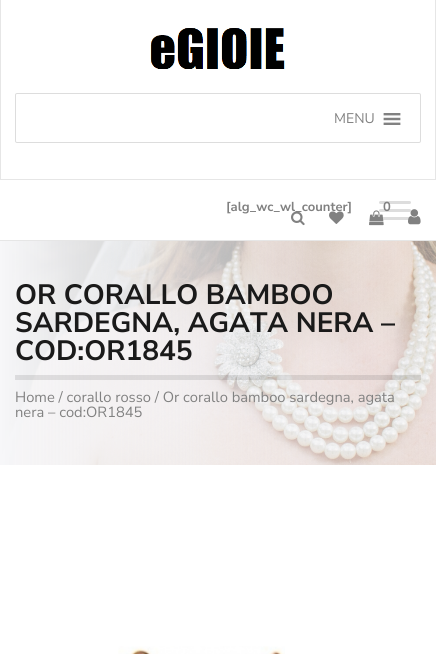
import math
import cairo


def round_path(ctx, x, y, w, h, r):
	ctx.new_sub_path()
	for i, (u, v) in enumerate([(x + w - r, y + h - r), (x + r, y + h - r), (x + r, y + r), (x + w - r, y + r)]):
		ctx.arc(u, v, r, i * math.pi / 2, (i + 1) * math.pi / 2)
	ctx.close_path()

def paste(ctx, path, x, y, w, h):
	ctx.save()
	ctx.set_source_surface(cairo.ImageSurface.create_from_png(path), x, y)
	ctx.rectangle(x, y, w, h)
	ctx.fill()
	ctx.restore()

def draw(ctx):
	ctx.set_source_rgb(1, 1, 1)
	ctx.paint()
	ctx.set_source_rgb(0.902, 0.902, 0.902)
	ctx.new_path()
	ctx.move_to(436, 0)
	ctx.line_to(436, 180)
	ctx.line_to(435, 179)
	ctx.line_to(435, 0)
	ctx.close_path()
	ctx.fill()
	ctx.set_source_rgba(0, 0, 0, 0.1)
	ctx.new_path()
	ctx.move_to(436, 180)
	ctx.line_to(0, 180)
	ctx.line_to(1, 179)
	ctx.line_to(435, 179)
	ctx.close_path()
	ctx.fill()
	ctx.new_path()
	ctx.move_to(0, 180)
	ctx.line_to(0, 0)
	ctx.line_to(1, 0)
	ctx.line_to(1, 179)
	ctx.close_path()
	ctx.fill()
	paste(ctx, 'media/1.png', 150, 28, 135, 41)
	round_path(ctx, 15.5, 93.5, 405, 49, 1.5)
	ctx.set_source_rgb(0.867, 0.867, 0.867)
	ctx.set_line_width(1)
	ctx.stroke()
	ctx.select_font_face('Nunito Sans')
	ctx.set_font_size(14)
	ctx.set_source_rgb(0.506, 0.506, 0.506)
	ctx.move_to(334, 123)
	ctx.show_text('MENU')
	paste(ctx, 'media/2.png', 383, 113, 18, 12)
	ctx.set_source_rgb(0.902, 0.902, 0.902)
	ctx.rectangle(0, 240, 436, 1)
	ctx.fill()
	paste(ctx, 'media/3.png', 329, 211, 15, 13)
	paste(ctx, 'media/5.png', 291, 211, 14, 15)
	ctx.select_font_face('Nunito Sans', cairo.FONT_SLANT_NORMAL, cairo.FONT_WEIGHT_BOLD)
	ctx.set_font_size(13)
	ctx.set_source_rgb(0.506, 0.506, 0.506)
	ctx.move_to(226, 211)
	ctx.show_text('[alg_wc_wl_counter]')
	ctx.set_source_rgb(0.867, 0.867, 0.867)
	round_path(ctx, 379, 209, 32, 3, 1.5)
	ctx.fill()
	ctx.rectangle(379, 217, 32, 3)
	ctx.fill()
	paste(ctx, 'media/4.png', 369, 210, 15, 16)
	round_path(ctx, 379, 201, 32, 3, 1.5)
	ctx.fill()
	ctx.set_source_rgb(0.506, 0.506, 0.506)
	ctx.move_to(383, 211)
	ctx.show_text('0')
	paste(ctx, 'media/6.png', 408, 209, 13, 16)
	paste(ctx, 'media/7.png', 0, 241, 436, 224)
	ctx.set_font_size(28)
	ctx.set_source_rgb(0.102, 0.102, 0.102)
	for x, y, s in [
		(15, 304, 'OR CORALLO BAMBOO'),
		(15, 332, 'SARDEGNA, AGATA NERA –'),
		(15, 360, 'COD:OR1845'),
	]:
		ctx.move_to(x, y)
		ctx.show_text(s)
	ctx.set_source_rgba(0, 0, 0, 0.1)
	ctx.rectangle(15, 375, 406, 5)
	ctx.fill()
	ctx.select_font_face('Nunito Sans')
	ctx.set_font_size(14.7)
	ctx.set_source_rgb(0.506, 0.506, 0.506)
	ctx.move_to(15, 402)
	ctx.show_text('Home / corallo rosso / Or corallo bamboo sardegna, agata')
	ctx.move_to(15, 417)
	ctx.show_text('nera – cod:OR1845')
	paste(ctx, 'media/8.png', 118, 646, 167, 8)


surface = cairo.ImageSurface(cairo.FORMAT_RGB24, 436, 654)
ctx = cairo.Context(surface)
options = cairo.FontOptions()
options.set_hint_metrics(cairo.HINT_METRICS_OFF)
options.set_hint_style(cairo.HINT_STYLE_NONE)
ctx.set_font_options(options)
ctx.set_miter_limit(4)
draw(ctx)
surface.write_to_png('image.png')
